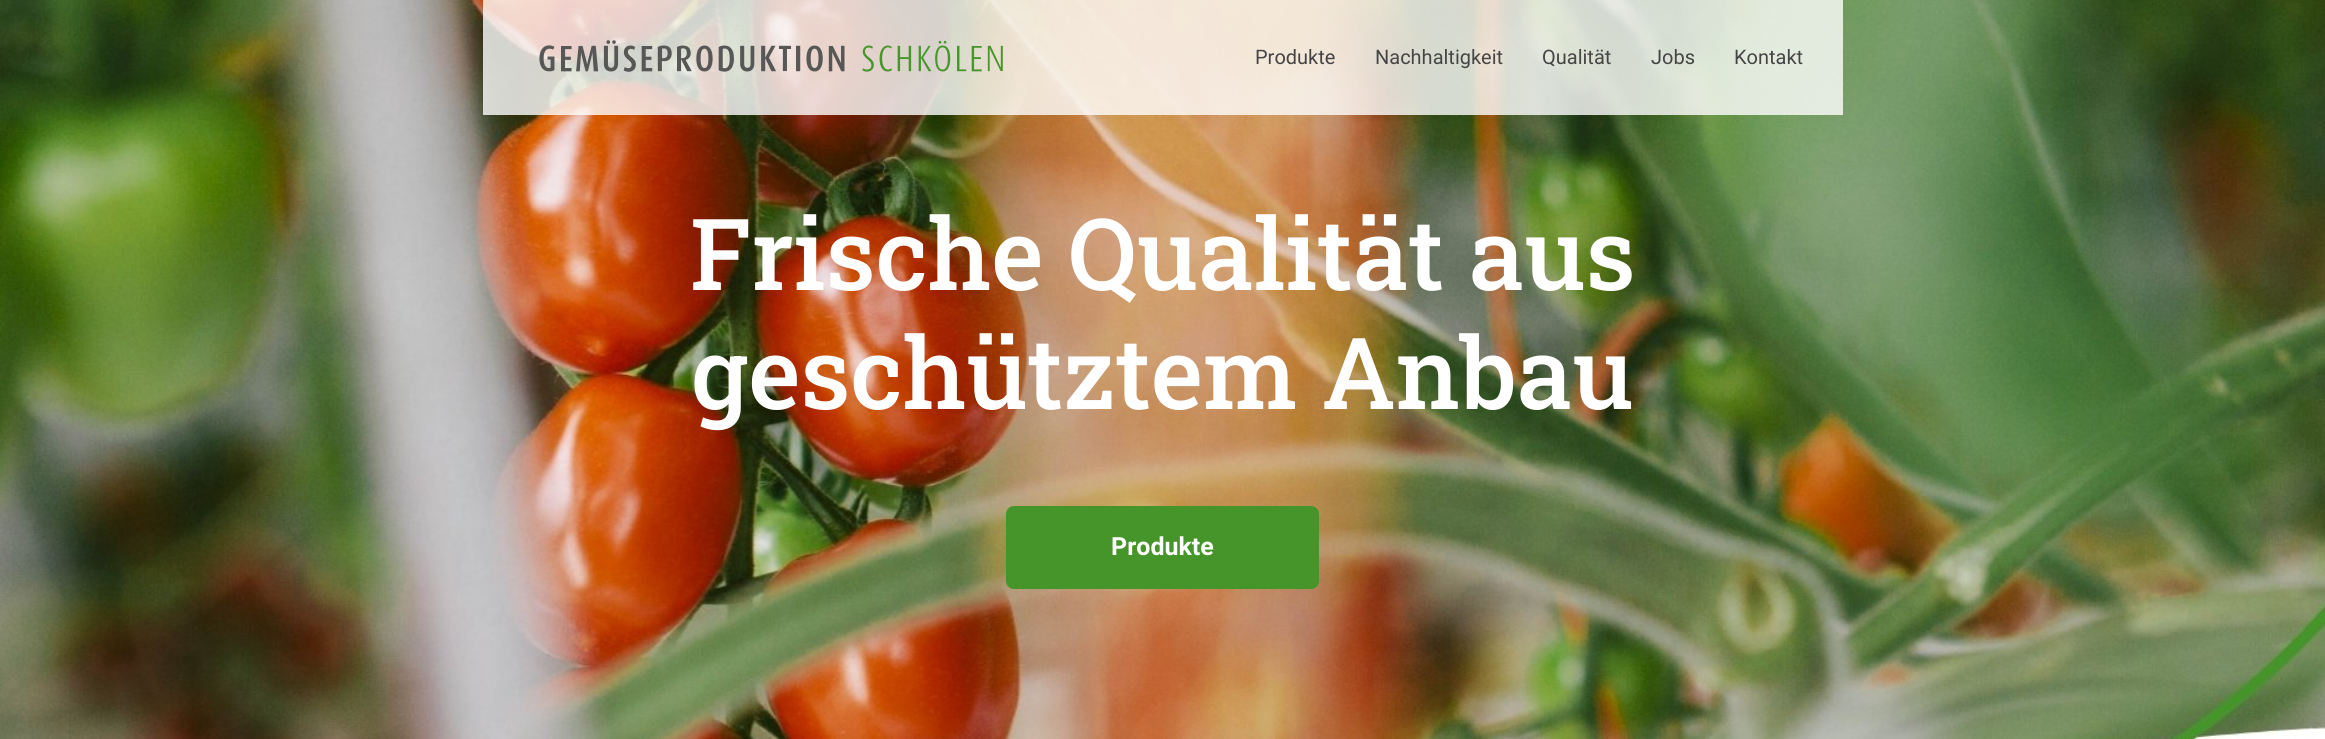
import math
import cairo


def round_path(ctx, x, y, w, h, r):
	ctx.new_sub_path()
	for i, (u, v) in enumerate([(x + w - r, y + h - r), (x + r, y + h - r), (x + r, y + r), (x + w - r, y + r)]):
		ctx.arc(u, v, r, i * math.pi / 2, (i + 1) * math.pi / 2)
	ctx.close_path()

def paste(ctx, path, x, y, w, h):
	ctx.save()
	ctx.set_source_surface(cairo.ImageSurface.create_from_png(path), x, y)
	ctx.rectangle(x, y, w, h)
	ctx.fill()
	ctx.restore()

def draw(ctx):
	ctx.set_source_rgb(1, 1, 1)
	ctx.paint()
	paste(ctx, 'media/2.png', 0, 0, 2325, 739)
	ctx.set_source_rgba(1, 1, 1, 0.8)
	ctx.rectangle(483, 0, 1360, 115)
	ctx.fill()
	paste(ctx, 'media/1.png', 539, 40, 464, 32)
	ctx.select_font_face('Roboto')
	ctx.set_font_size(20)
	ctx.set_source_rgb(0.275, 0.271, 0.271)
	for x, y, s in [
		(1255, 64, 'Produkte'),
		(1375, 64, 'Nachhaltigkeit'),
		(1542, 64, 'Qualität'),
		(1651, 64, 'Jobs'),
		(1734, 64, 'Kontakt'),
	]:
		ctx.move_to(x, y)
		ctx.show_text(s)
	ctx.select_font_face('Roboto Slab Medium')
	ctx.set_font_size(99.5)
	ctx.set_source_rgb(1, 1, 1)
	ctx.move_to(690, 290)
	ctx.show_text('Frische Qualität aus')
	ctx.move_to(691, 409)
	ctx.show_text('geschütztem Anbau')
	ctx.set_source_rgb(0.275, 0.584, 0.169)
	round_path(ctx, 1007.5, 507.5, 310, 80, 6.5)
	ctx.fill_preserve()
	ctx.set_line_width(3)
	ctx.stroke()
	ctx.select_font_face('Roboto', cairo.FONT_SLANT_NORMAL, cairo.FONT_WEIGHT_BOLD)
	ctx.set_font_size(25)
	ctx.set_source_rgb(1, 1, 1)
	ctx.move_to(1111, 555)
	ctx.show_text('Produkte')


surface = cairo.ImageSurface(cairo.FORMAT_RGB24, 2325, 739)
ctx = cairo.Context(surface)
options = cairo.FontOptions()
options.set_hint_metrics(cairo.HINT_METRICS_OFF)
options.set_hint_style(cairo.HINT_STYLE_NONE)
ctx.set_font_options(options)
ctx.set_miter_limit(4)
draw(ctx)
surface.write_to_png('image.png')
